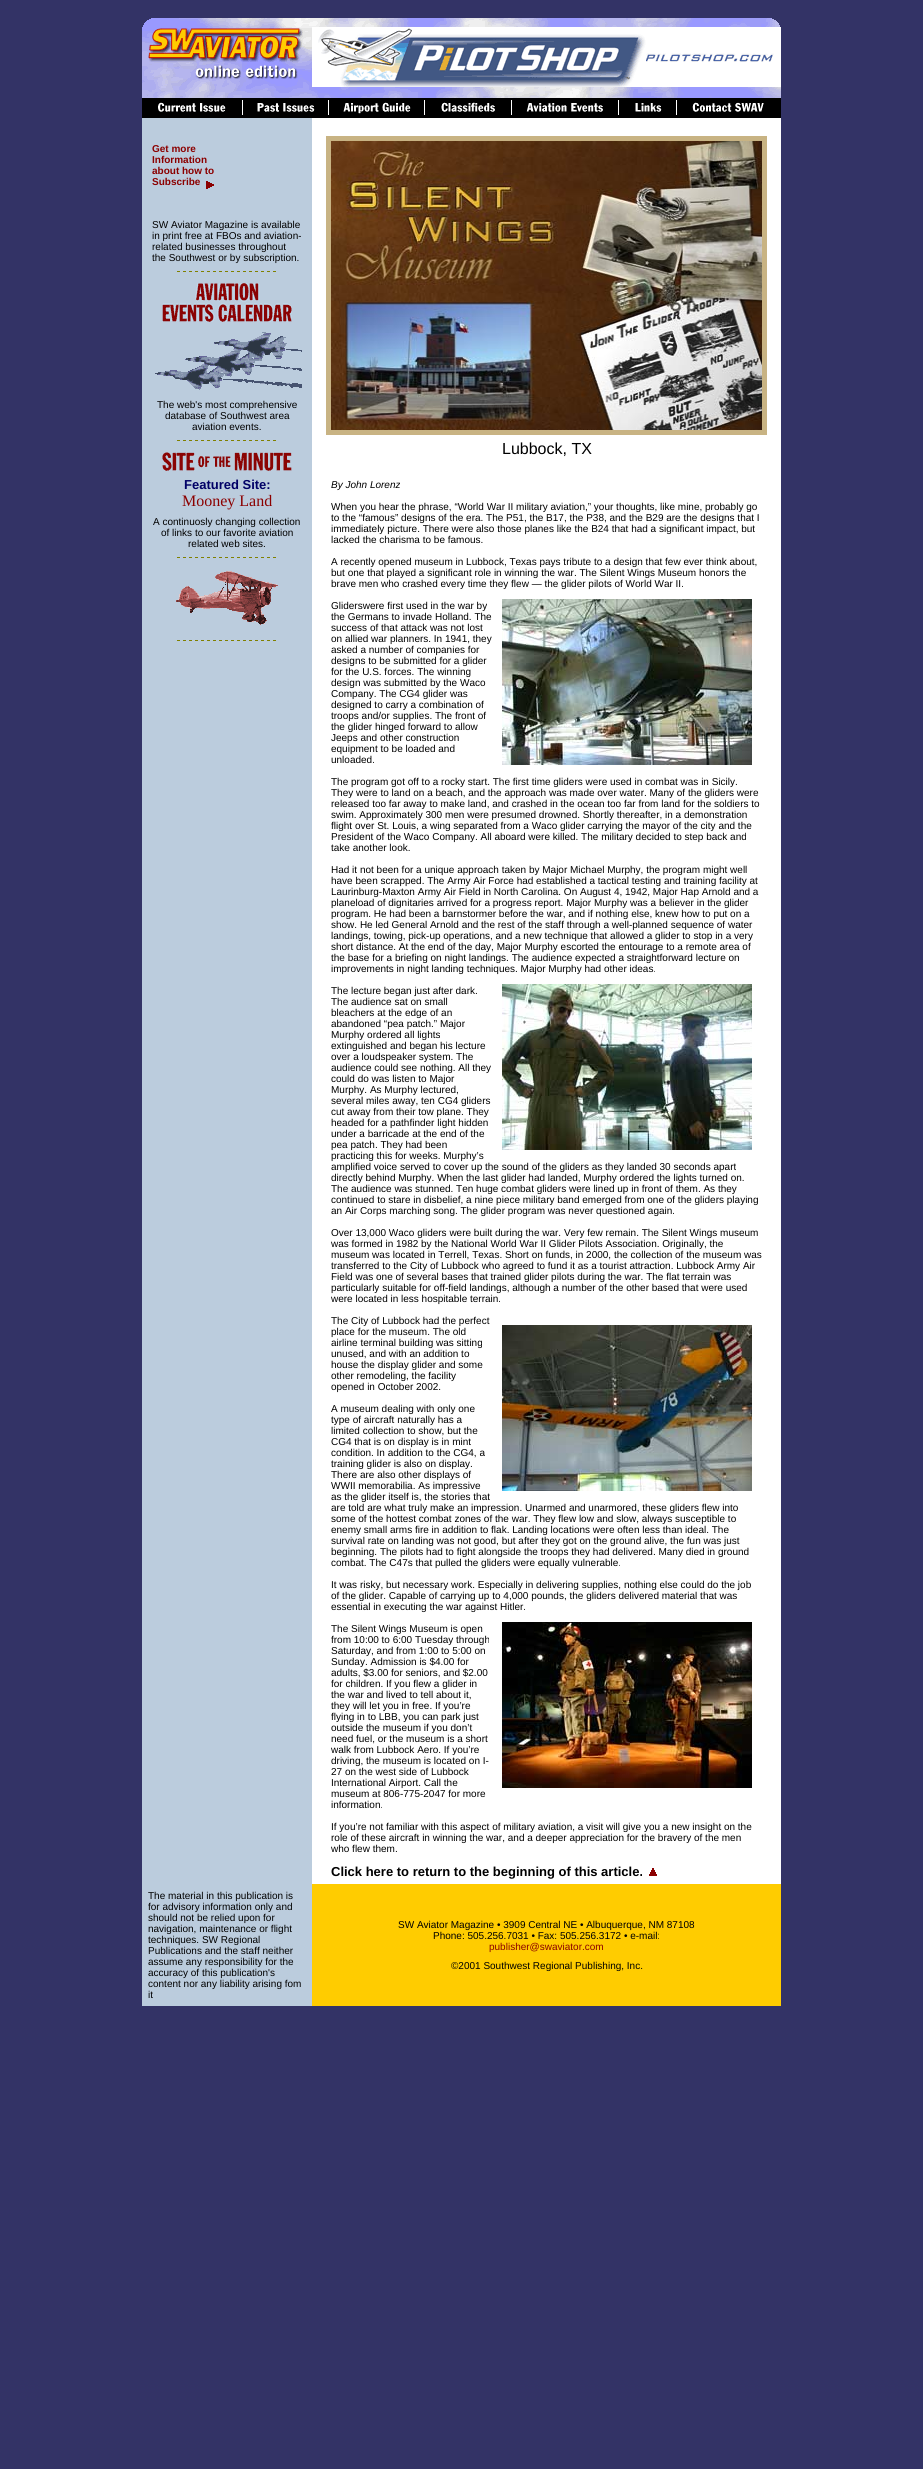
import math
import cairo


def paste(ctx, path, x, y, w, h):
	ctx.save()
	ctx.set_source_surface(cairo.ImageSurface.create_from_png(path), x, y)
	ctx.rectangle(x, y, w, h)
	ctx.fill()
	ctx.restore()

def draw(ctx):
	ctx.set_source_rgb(0.2, 0.2, 0.4)
	ctx.paint()
	paste(ctx, 'media/1.png', 143, 18, 637, 9)
	paste(ctx, 'media/2.png', 142, 27, 170, 71)
	paste(ctx, 'media/3.png', 312, 27, 469, 60)
	paste(ctx, 'media/4.png', 312, 87, 469, 11)
	ctx.set_source_rgb(0, 0, 0)
	ctx.rectangle(142, 98, 639, 20)
	ctx.fill()
	paste(ctx, 'media/5.png', 158, 102, 68, 10)
	paste(ctx, 'media/6.png', 242, 100, 73, 15)
	paste(ctx, 'media/7.png', 328, 100, 83, 15)
	paste(ctx, 'media/8.png', 424, 100, 71, 15)
	paste(ctx, 'media/9.png', 511, 100, 92, 15)
	paste(ctx, 'media/10.png', 618, 100, 44, 15)
	paste(ctx, 'media/11.png', 676, 100, 88, 15)
	ctx.set_source_rgb(0.733, 0.8, 0.867)
	ctx.rectangle(142, 118, 170, 1888)
	ctx.fill()
	ctx.select_font_face('Liberation Sans', cairo.FONT_SLANT_NORMAL, cairo.FONT_WEIGHT_BOLD)
	ctx.set_font_size(10)
	ctx.set_source_rgb(0.545, 0, 0)
	for x, y, s in [
		(152, 152, 'Get more'),
		(152, 163, 'Information'),
		(152, 174, 'about how to'),
		(152, 185, 'Subscribe'),
	]:
		ctx.move_to(x, y)
		ctx.show_text(s)
	paste(ctx, 'media/12.png', 206, 181, 8, 8)
	ctx.select_font_face('Liberation Sans')
	ctx.set_source_rgb(0, 0, 0)
	for x, y, s in [
		(152, 228, 'SW Aviator Magazine is available'),
		(152, 239, 'in print free at FBOs and aviation-'),
		(152, 250, 'related businesses throughout'),
		(152, 261, 'the Southwest or by subscription.'),
	]:
		ctx.move_to(x, y)
		ctx.show_text(s)
	paste(ctx, 'media/13.png', 177, 271, 99, 1)
	paste(ctx, 'media/14.png', 162, 283, 130, 39)
	paste(ctx, 'media/15.png', 155, 332, 147, 58)
	for x, y, s in [
		(157, 408, 'The web\'s most comprehensive'),
		(165, 419, 'database of Southwest area'),
		(192, 430, 'aviation events.'),
	]:
		ctx.move_to(x, y)
		ctx.show_text(s)
	paste(ctx, 'media/13.png', 177, 440, 99, 1)
	paste(ctx, 'media/16.png', 162, 452, 130, 19)
	ctx.select_font_face('Liberation Sans', cairo.FONT_SLANT_NORMAL, cairo.FONT_WEIGHT_BOLD)
	ctx.set_font_size(13)
	ctx.set_source_rgb(0, 0, 0.4)
	ctx.move_to(184, 489)
	ctx.show_text('Featured Site:')
	ctx.select_font_face('Liberation Serif')
	ctx.set_font_size(16)
	ctx.set_source_rgb(0.545, 0, 0)
	ctx.move_to(182, 506)
	ctx.show_text('Mooney Land')
	ctx.select_font_face('Liberation Sans')
	ctx.set_font_size(10)
	ctx.set_source_rgb(0, 0, 0)
	for x, y, s in [
		(153, 525, 'A continuosly changing collection'),
		(161, 536, 'of links to our favorite aviation'),
		(188, 547, 'related web sites.'),
	]:
		ctx.move_to(x, y)
		ctx.show_text(s)
	paste(ctx, 'media/13.png', 177, 557, 99, 1)
	paste(ctx, 'media/17.png', 176, 571, 102, 54)
	paste(ctx, 'media/13.png', 177, 640, 99, 1)
	ctx.set_source_rgb(1, 1, 1)
	ctx.rectangle(312, 118, 469, 1766)
	ctx.fill()
	ctx.set_source_rgb(0.784, 0.702, 0.514)
	ctx.rectangle(326, 136, 441, 299)
	ctx.fill()
	paste(ctx, 'media/18.png', 331, 141, 431, 289)
	ctx.set_font_size(16)
	ctx.set_source_rgb(0, 0, 0)
	ctx.move_to(502, 454)
	ctx.show_text('Lubbock, TX')
	ctx.select_font_face('Liberation Sans', cairo.FONT_SLANT_ITALIC)
	ctx.set_font_size(10)
	ctx.move_to(331, 488)
	ctx.show_text('By John Lorenz')
	ctx.select_font_face('Liberation Sans')
	for x, y, s in [
		(331, 510, 'When you hear the phrase, “World War II military aviation,” your thoughts, like mine, probably go'),
		(331, 521, 'to the “famous” designs of the era. The P51, the B17, the P38, and the B29 are the designs that I'),
		(331, 532, 'immediately picture. There were also those planes like the B24 that had a significant impact, but'),
		(331, 543, 'lacked the charisma to be famous.'),
		(331, 565, 'A recently opened museum in Lubbock, Texas pays tribute to a design that few ever think about,'),
		(331, 576, 'but one that played a significant role in winning the war. The Silent Wings Museum honors the'),
		(331, 587, 'brave men who crashed every time they flew — the glider pilots of World War II.'),
	]:
		ctx.move_to(x, y)
		ctx.show_text(s)
	paste(ctx, 'media/19.png', 502, 599, 250, 166)
	for x, y, s in [
		(331, 609, 'Gliderswere first used in the war by'),
		(331, 620, 'the Germans to invade Holland. The'),
		(331, 631, 'success of that attack was not lost'),
		(331, 642, 'on allied war planners. In 1941, they'),
		(331, 653, 'asked a number of companies for'),
		(331, 664, 'designs to be submitted for a glider'),
		(331, 675, 'for the U.S. forces. The winning'),
		(331, 686, 'design was submitted by the Waco'),
		(331, 697, 'Company. The CG4 glider was'),
		(331, 708, 'designed to carry a combination of'),
		(331, 719, 'troops and/or supplies. The front of'),
		(331, 730, 'the glider hinged forward to allow'),
		(331, 741, 'Jeeps and other construction'),
		(331, 752, 'equipment to be loaded and'),
		(331, 763, 'unloaded.'),
		(331, 785, 'The program got off to a rocky start. The first time gliders were used in combat was in Sicily.'),
		(331, 796, 'They were to land on a beach, and the approach was made over water. Many of the gliders were'),
		(331, 807, 'released too far away to make land, and crashed in the ocean too far from land for the soldiers to'),
		(331, 818, 'swim. Approximately 300 men were presumed drowned. Shortly thereafter, in a demonstration'),
		(331, 829, 'flight over St. Louis, a wing separated from a Waco glider carrying the mayor of the city and the'),
		(331, 840, 'President of the Waco Company. All aboard were killed. The military decided to step back and'),
		(331, 851, 'take another look.'),
		(331, 873, 'Had it not been for a unique approach taken by Major Michael Murphy, the program might well'),
		(331, 884, 'have been scrapped. The Army Air Force had established a tactical testing and training facility at'),
		(331, 895, 'Laurinburg-Maxton Army Air Field in North Carolina. On August 4, 1942, Major Hap Arnold and a'),
		(331, 906, 'planeload of dignitaries arrived for a progress report. Major Murphy was a believer in the glider'),
		(331, 917, 'program. He had been a barnstormer before the war, and if nothing else, knew how to put on a'),
		(331, 928, 'show. He led General Arnold and the rest of the staff through a well-planned sequence of water'),
		(331, 939, 'landings, towing, pick-up operations, and a new technique that allowed a glider to stop in a very'),
		(331, 950, 'short distance. At the end of the day, Major Murphy escorted the entourage to a remote area of'),
		(331, 961, 'the base for a briefing on night landings. The audience expected a straightforward lecture on'),
		(331, 972, 'improvements in night landing techniques. Major Murphy had other ideas.'),
	]:
		ctx.move_to(x, y)
		ctx.show_text(s)
	paste(ctx, 'media/20.png', 502, 984, 250, 166)
	for x, y, s in [
		(331, 994, 'The lecture began just after dark.'),
		(331, 1005, 'The audience sat on small'),
		(331, 1016, 'bleachers at the edge of an'),
		(331, 1027, 'abandoned “pea patch.” Major'),
		(331, 1038, 'Murphy ordered all lights'),
		(331, 1049, 'extinguished and began his lecture'),
		(331, 1060, 'over a loudspeaker system. The'),
		(331, 1071, 'audience could see nothing. All they'),
		(331, 1082, 'could do was listen to Major'),
		(331, 1093, 'Murphy. As Murphy lectured,'),
		(331, 1104, 'several miles away, ten CG4 gliders'),
		(331, 1115, 'cut away from their tow plane. They'),
		(331, 1126, 'headed for a pathfinder light hidden'),
		(331, 1137, 'under a barricade at the end of the'),
		(331, 1148, 'pea patch. They had been'),
		(331, 1159, 'practicing this for weeks. Murphy’s'),
		(331, 1170, 'amplified voice served to cover up the sound of the gliders as they landed 30 seconds apart'),
		(331, 1181, 'directly behind Murphy. When the last glider had landed, Murphy ordered the lights turned on.'),
		(331, 1192, 'The audience was stunned. Ten huge combat gliders were lined up in front of them. As they'),
		(331, 1203, 'continued to stare in disbelief, a nine piece military band emerged from one of the gliders playing'),
		(331, 1214, 'an Air Corps marching song. The glider program was never questioned again.'),
		(331, 1236, 'Over 13,000 Waco gliders were built during the war. Very few remain. The Silent Wings museum'),
		(331, 1247, 'was formed in 1982 by the National World War II Glider Pilots Association. Originally, the'),
		(331, 1258, 'museum was located in Terrell, Texas. Short on funds, in 2000, the collection of the museum was'),
		(331, 1269, 'transferred to the City of Lubbock who agreed to fund it as a tourist attraction. Lubbock Army Air'),
		(331, 1280, 'Field was one of several bases that trained glider pilots during the war. The flat terrain was'),
		(331, 1291, 'particularly suitable for off-field landings, although a number of the other based that were used'),
		(331, 1302, 'were located in less hospitable terrain.'),
		(331, 1324, 'The City of Lubbock had the perfect'),
		(331, 1335, 'place for the museum. The old'),
	]:
		ctx.move_to(x, y)
		ctx.show_text(s)
	paste(ctx, 'media/21.png', 502, 1325, 250, 166)
	for x, y, s in [
		(331, 1346, 'airline terminal building was sitting'),
		(331, 1357, 'unused, and with an addition to'),
		(331, 1368, 'house the display glider and some'),
		(331, 1379, 'other remodeling, the facility'),
		(331, 1390, 'opened in October 2002.'),
		(331, 1412, 'A museum dealing with only one'),
		(331, 1423, 'type of aircraft naturally has a'),
		(331, 1434, 'limited collection to show, but the'),
		(331, 1445, 'CG4 that is on display is in mint'),
		(331, 1456, 'condition. In addition to the CG4, a'),
		(331, 1467, 'training glider is also on display.'),
		(331, 1478, 'There are also other displays of'),
		(331, 1489, 'WWII memorabilia. As impressive'),
		(331, 1500, 'as the glider itself is, the stories that'),
		(331, 1511, 'are told are what truly make an impression. Unarmed and unarmored, these gliders flew into'),
		(331, 1522, 'some of the hottest combat zones of the war. They flew low and slow, always susceptible to'),
		(331, 1533, 'enemy small arms fire in addition to flak. Landing locations were often less than ideal. The'),
		(331, 1544, 'survival rate on landing was not good, but after they got on the ground alive, the fun was just'),
		(331, 1555, 'beginning. The pilots had to fight alongside the troops they had delivered. Many died in ground'),
		(331, 1566, 'combat. The C47s that pulled the gliders were equally vulnerable.'),
		(331, 1588, 'It was risky, but necessary work. Especially in delivering supplies, nothing else could do the job'),
		(331, 1599, 'of the glider. Capable of carrying up to 4,000 pounds, the gliders delivered material that was'),
		(331, 1610, 'essential in executing the war against Hitler.'),
		(331, 1632, 'The Silent Wings Museum is open'),
	]:
		ctx.move_to(x, y)
		ctx.show_text(s)
	paste(ctx, 'media/22.png', 502, 1622, 250, 166)
	for x, y, s in [
		(331, 1643, 'from 10:00 to 6:00 Tuesday through'),
		(331, 1654, 'Saturday, and from 1:00 to 5:00 on'),
		(331, 1665, 'Sunday. Admission is $4.00 for'),
		(331, 1676, 'adults, $3.00 for seniors, and $2.00'),
		(331, 1687, 'for children. If you flew a glider in'),
		(331, 1698, 'the war and lived to tell about it,'),
		(331, 1709, 'they will let you in free. If you’re'),
		(331, 1720, 'flying in to LBB, you can park just'),
		(331, 1731, 'outside the museum if you don’t'),
		(331, 1742, 'need fuel, or the museum is a short'),
		(331, 1753, 'walk from Lubbock Aero. If you’re'),
		(331, 1764, 'driving, the museum is located on I-'),
		(331, 1775, '27 on the west side of Lubbock'),
		(331, 1786, 'International Airport. Call the'),
		(331, 1797, 'museum at 806-775-2047 for more'),
		(331, 1808, 'information.'),
		(331, 1830, 'If you’re not familiar with this aspect of military aviation, a visit will give you a new insight on the'),
		(331, 1841, 'role of these aircraft in winning the war, and a deeper appreciation for the bravery of the men'),
		(331, 1852, 'who flew them.'),
	]:
		ctx.move_to(x, y)
		ctx.show_text(s)
	ctx.select_font_face('Liberation Sans', cairo.FONT_SLANT_NORMAL, cairo.FONT_WEIGHT_BOLD)
	ctx.set_font_size(13)
	ctx.move_to(331, 1876)
	ctx.show_text('Click here to return to the beginning of this article.')
	paste(ctx, 'media/23.png', 649, 1868, 8, 8)
	ctx.select_font_face('Liberation Sans')
	ctx.set_font_size(10)
	for x, y, s in [
		(148, 1899, 'The material in this publication is'),
		(148, 1910, 'for advisory information only and'),
		(148, 1921, 'should not be relied upon for'),
		(148, 1932, 'navigation, maintenance or flight'),
		(148, 1943, 'techniques. SW Regional'),
		(148, 1954, 'Publications and the staff neither'),
		(148, 1965, 'assume any responsibility for the'),
		(148, 1976, 'accuracy of this publication\'s'),
		(148, 1987, 'content nor any liability arising fom'),
		(148, 1998, 'it'),
	]:
		ctx.move_to(x, y)
		ctx.show_text(s)
	ctx.set_source_rgb(1, 0.8, 0)
	ctx.rectangle(312, 1884, 469, 122)
	ctx.fill()
	ctx.set_source_rgb(0, 0, 0)
	ctx.move_to(398, 1928)
	ctx.show_text('SW Aviator Magazine • 3909 Central NE • Albuquerque, NM 87108')
	ctx.move_to(433, 1939)
	ctx.show_text('Phone: 505.256.7031 • Fax: 505.256.3172 • e-mail:')
	ctx.set_source_rgb(0.545, 0, 0)
	ctx.move_to(489, 1950)
	ctx.show_text('publisher@swaviator.com')
	ctx.set_source_rgb(0, 0, 0)
	ctx.move_to(451, 1969)
	ctx.show_text('©2001 Southwest Regional Publishing, Inc.')


surface = cairo.ImageSurface(cairo.FORMAT_RGB24, 923, 2469)
ctx = cairo.Context(surface)
options = cairo.FontOptions()
options.set_hint_metrics(cairo.HINT_METRICS_OFF)
options.set_hint_style(cairo.HINT_STYLE_NONE)
ctx.set_font_options(options)
ctx.set_miter_limit(4)
draw(ctx)
surface.write_to_png('image.png')
